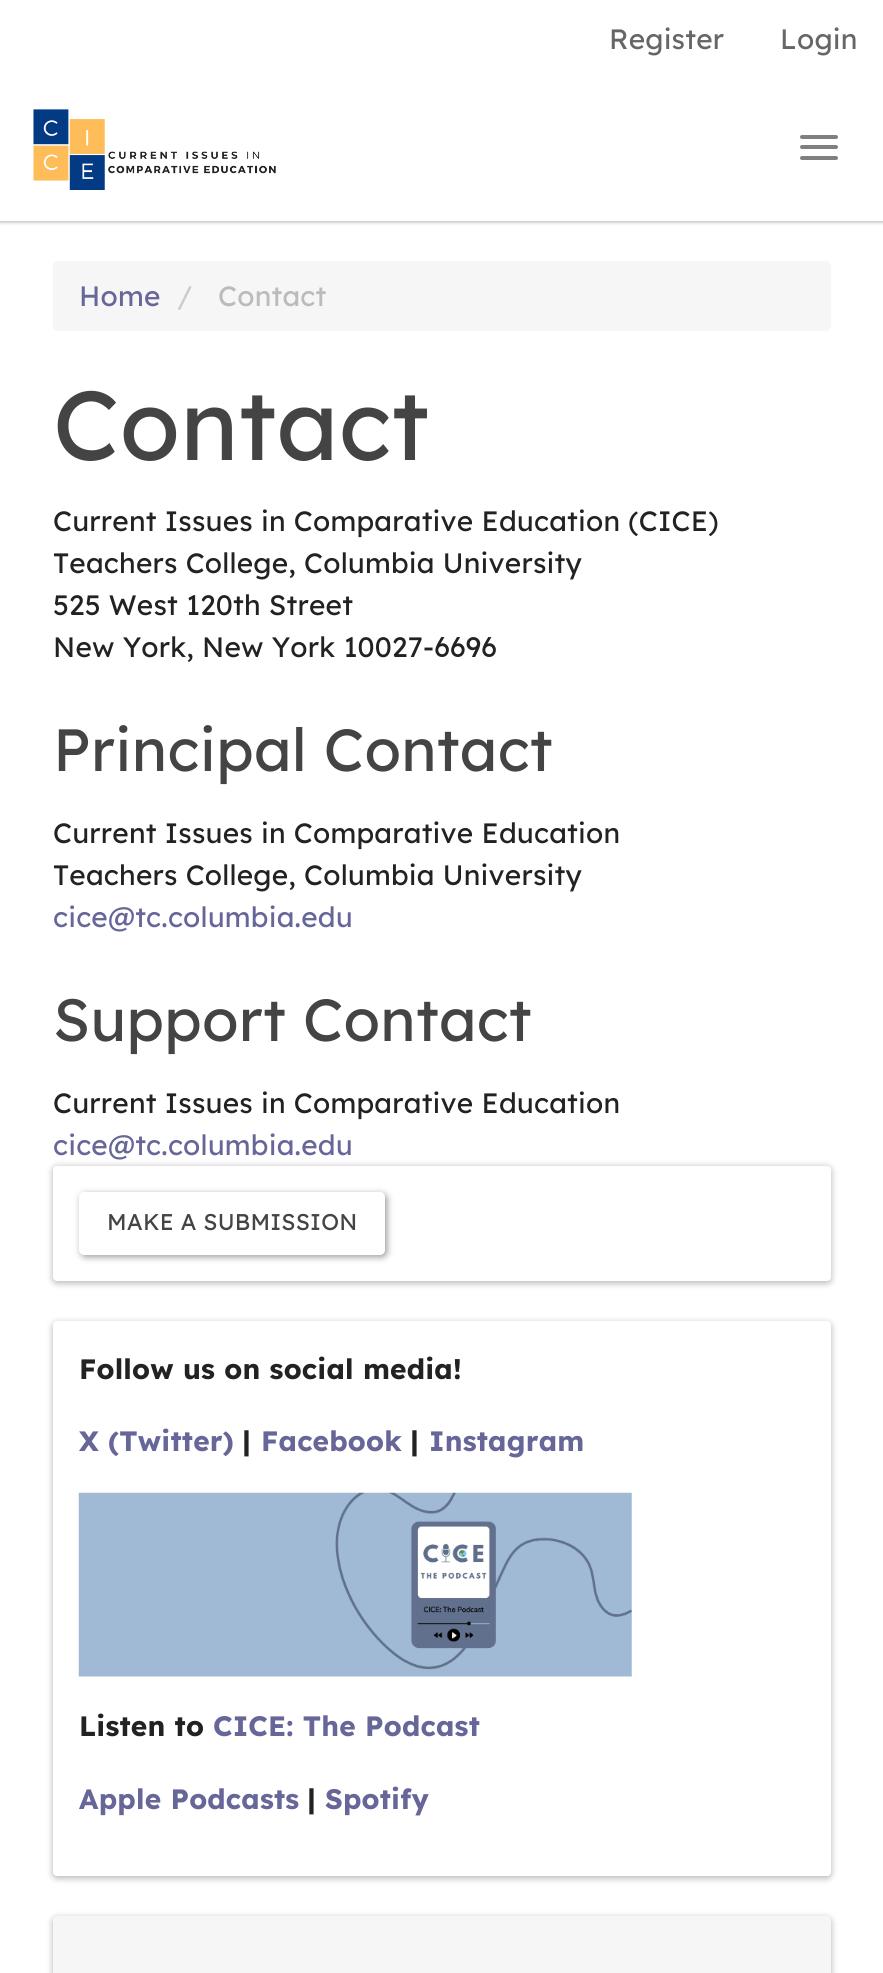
import math
import cairo


def write_spaced(ctx, x, y, s, letter, word):
	ctx.move_to(x, y)
	for ch in s:
		ctx.show_text(ch)
		ctx.rel_move_to(letter + word * (ch == ' '), 0)

def round_path(ctx, x, y, w, h, r):
	ctx.new_sub_path()
	for i, (u, v) in enumerate([(x + w - r, y + h - r), (x + r, y + h - r), (x + r, y + r), (x + w - r, y + r)]):
		ctx.arc(u, v, r, i * math.pi / 2, (i + 1) * math.pi / 2)
	ctx.close_path()

def blur_box(ctx, x, y, w, h, r, blur, alpha):
	ctx.push_group_with_content(cairo.CONTENT_ALPHA)
	ctx.set_operator(cairo.OPERATOR_SOURCE)
	for i in range(15, -16, -2):
		e = blur * i / 6
		if min(w, h) + 2 * e > 0:
			ctx.set_source_rgba(0, 0, 0, alpha * math.erfc((i - 1) / 8.5) / 2)
			round_path(ctx, x - e, y - e, w + 2 * e, h + 2 * e, max(0, min(r + e + blur * .6, min(w, h) / 2 + e)))
			ctx.fill()
	ctx.mask(ctx.pop_group())

def paste(ctx, path, x, y, w, h):
	ctx.save()
	ctx.set_source_surface(cairo.ImageSurface.create_from_png(path), x, y)
	ctx.rectangle(x, y, w, h)
	ctx.fill()
	ctx.restore()

def draw(ctx):
	ctx.set_source_rgb(1, 1, 1)
	ctx.paint()
	ctx.set_source_rgb(0, 0, 0)
	blur_box(ctx, 0, 2, 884, 220, 0, 2, 0.3)
	ctx.set_source_rgb(1, 1, 1)
	ctx.rectangle(0, 0, 883, 221)
	ctx.fill()
	ctx.select_font_face('Lexend')
	ctx.set_font_size(28)
	ctx.set_source_rgb(0.4, 0.4, 0.4)
	write_spaced(ctx, 609, 49, 'Register', 0.2, 0)
	write_spaced(ctx, 780, 49, 'Login', 0.2, 0)
	paste(ctx, 'media/1.png', 33, 109, 243, 81)
	ctx.set_source_rgb(0.502, 0.502, 0.502)
	round_path(ctx, 800, 135, 38, 4, 2)
	ctx.fill()
	round_path(ctx, 800, 145, 38, 4, 2)
	ctx.fill()
	round_path(ctx, 800, 156, 38, 4, 2)
	ctx.fill()
	ctx.set_source_rgb(0.961, 0.961, 0.961)
	round_path(ctx, 53, 261, 778, 70, 5)
	ctx.fill()
	ctx.set_source_rgb(0.4, 0.4, 0.6)
	write_spaced(ctx, 79, 306, 'Home', 0.2, 0)
	ctx.set_source_rgb(0.8, 0.8, 0.8)
	write_spaced(ctx, 177, 306, '/', 0.2, 0)
	ctx.set_source_rgb(0.733, 0.733, 0.733)
	write_spaced(ctx, 218, 306, 'Contact', 0.2, 0)
	ctx.set_font_size(98)
	ctx.set_source_rgb(0.267, 0.267, 0.267)
	write_spaced(ctx, 53, 460, 'Contact', 0.2, 0)
	ctx.set_font_size(28)
	ctx.set_source_rgb(0.133, 0.133, 0.133)
	for x, y, s in [
		(53, 531, 'Current Issues in Comparative Education (CICE)'),
		(53, 573, 'Teachers College, Columbia University'),
		(53, 615, '525 West 120th Street'),
		(53, 657, 'New York, New York 10027-6696'),
	]:
		write_spaced(ctx, x, y, s, 0.2, 0)
	ctx.set_font_size(59.5)
	ctx.set_source_rgb(0.267, 0.267, 0.267)
	write_spaced(ctx, 53, 771, 'Principal Contact', 0.2, 0)
	ctx.set_font_size(28)
	ctx.set_source_rgb(0.133, 0.133, 0.133)
	write_spaced(ctx, 53, 843, 'Current Issues in Comparative Education', 0.2, 0)
	write_spaced(ctx, 53, 885, 'Teachers College, Columbia University', 0.2, 0)
	ctx.set_source_rgb(0.4, 0.4, 0.6)
	write_spaced(ctx, 53, 927, 'cice@tc.columbia.edu', 0.2, 0)
	ctx.set_font_size(59.5)
	ctx.set_source_rgb(0.267, 0.267, 0.267)
	write_spaced(ctx, 53, 1041, 'Support Contact', 0.2, 0)
	ctx.set_font_size(28)
	ctx.set_source_rgb(0.133, 0.133, 0.133)
	write_spaced(ctx, 53, 1113, 'Current Issues in Comparative Education', 0.2, 0)
	ctx.set_source_rgb(0.4, 0.4, 0.6)
	write_spaced(ctx, 53, 1155, 'cice@tc.columbia.edu', 0.2, 0)
	ctx.set_source_rgb(0, 0, 0)
	blur_box(ctx, 53, 1167, 778, 116, 4, 3.5, 0.3)
	ctx.set_source_rgb(1, 1, 1)
	round_path(ctx, 53, 1166, 778, 115, 4)
	ctx.fill()
	ctx.set_source_rgb(0, 0, 0)
	blur_box(ctx, 81, 1194, 306, 63, 5, 3.5, 0.4)
	ctx.set_source_rgb(1, 1, 1)
	round_path(ctx, 79, 1192, 306, 63, 5)
	ctx.fill()
	ctx.set_font_size(22.75)
	ctx.set_source_rgb(0.267, 0.267, 0.267)
	write_spaced(ctx, 107, 1230, 'MAKE A SUBMISSION', 0.2, 0)
	ctx.set_source_rgb(0, 0, 0)
	blur_box(ctx, 53, 1323, 778, 555, 4, 3.5, 0.3)
	ctx.set_source_rgb(1, 1, 1)
	round_path(ctx, 53, 1321, 778, 555, 4)
	ctx.fill()
	ctx.select_font_face('Lexend', cairo.FONT_SLANT_NORMAL, cairo.FONT_WEIGHT_BOLD)
	ctx.set_font_size(28)
	ctx.set_source_rgb(0.133, 0.133, 0.133)
	write_spaced(ctx, 79, 1379, 'Follow us on social media!', 0.2, 0)
	ctx.set_source_rgb(0.4, 0.4, 0.6)
	write_spaced(ctx, 79, 1451, 'X (Twitter)', 0.2, 0)
	ctx.set_source_rgb(0.133, 0.133, 0.133)
	write_spaced(ctx, 242, 1451, '|', 0.2, 0)
	ctx.set_source_rgb(0.4, 0.4, 0.6)
	write_spaced(ctx, 261, 1451, 'Facebook', 0.2, 0)
	ctx.set_source_rgb(0.133, 0.133, 0.133)
	write_spaced(ctx, 410, 1451, '|', 0.2, 0)
	ctx.set_source_rgb(0.4, 0.4, 0.6)
	write_spaced(ctx, 429, 1451, 'Instagram', 0.2, 0)
	paste(ctx, 'media/2.png', 78, 1492, 554, 185)
	ctx.set_source_rgb(0.133, 0.133, 0.133)
	write_spaced(ctx, 79, 1736, 'Listen to', 0.2, 0)
	ctx.set_source_rgb(0.4, 0.4, 0.6)
	write_spaced(ctx, 213, 1736, 'CICE: The Podcast', 0.2, 0)
	write_spaced(ctx, 79, 1809, 'Apple Podcasts', 0.2, 0)
	ctx.set_source_rgb(0.133, 0.133, 0.133)
	write_spaced(ctx, 307, 1809, '|', 0.2, 0)
	ctx.set_source_rgb(0.4, 0.4, 0.6)
	write_spaced(ctx, 325, 1809, 'Spotify', 0.2, 0)
	ctx.set_source_rgb(0, 0, 0)
	blur_box(ctx, 53, 1918, 778, 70, 4, 3.5, 0.3)
	ctx.set_source_rgb(0.961, 0.961, 0.961)
	ctx.new_path()
	ctx.move_to(57, 1916)
	ctx.line_to(827, 1916)
	ctx.curve_to(829, 1916, 831, 1918, 831, 1920)
	ctx.line_to(831, 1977)
	ctx.line_to(53, 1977)
	ctx.line_to(53, 1920)
	ctx.curve_to(53, 1918, 55, 1916, 57, 1916)
	ctx.close_path()
	ctx.fill()


surface = cairo.ImageSurface(cairo.FORMAT_RGB24, 883, 1973)
ctx = cairo.Context(surface)
options = cairo.FontOptions()
options.set_hint_metrics(cairo.HINT_METRICS_OFF)
options.set_hint_style(cairo.HINT_STYLE_NONE)
ctx.set_font_options(options)
ctx.set_miter_limit(4)
draw(ctx)
surface.write_to_png('image.png')
